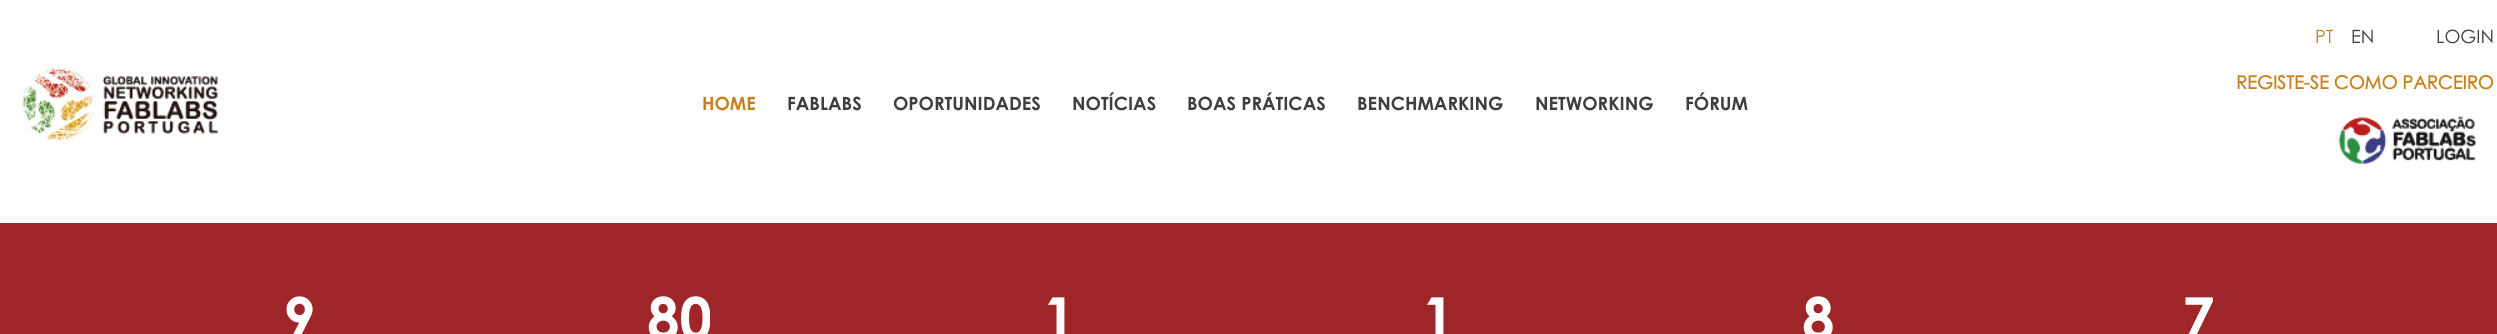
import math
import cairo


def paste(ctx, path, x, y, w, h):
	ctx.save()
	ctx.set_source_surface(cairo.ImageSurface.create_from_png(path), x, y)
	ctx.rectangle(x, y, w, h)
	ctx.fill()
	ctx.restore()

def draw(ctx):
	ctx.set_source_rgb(1, 1, 1)
	ctx.paint()
	ctx.select_font_face('Century Gothic')
	ctx.set_font_size(18.3)
	ctx.set_source_rgb(0.784, 0.502, 0.106)
	ctx.move_to(2315, 43)
	ctx.show_text('PT')
	ctx.set_source_rgb(0.247, 0.243, 0.243)
	ctx.move_to(2351, 43)
	ctx.show_text('EN')
	ctx.move_to(2436, 43)
	ctx.show_text('LOGIN')
	ctx.select_font_face('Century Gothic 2', cairo.FONT_SLANT_NORMAL, cairo.FONT_WEIGHT_BOLD)
	ctx.set_source_rgb(0.784, 0.502, 0.106)
	ctx.move_to(2236, 89)
	ctx.show_text('REGISTE-SE COMO PARCEIRO')
	paste(ctx, 'media/1.png', 2338, 116, 139, 48)
	paste(ctx, 'media/2.png', 22, 68, 197, 74)
	ctx.select_font_face('Century Gothic', cairo.FONT_SLANT_NORMAL, cairo.FONT_WEIGHT_BOLD)
	ctx.move_to(702, 110)
	ctx.show_text('HOME')
	ctx.set_source_rgb(0.247, 0.243, 0.243)
	for x, y, s in [
		(787, 110, 'FABLABS'),
		(893, 110, 'OPORTUNIDADES'),
		(1072, 110, 'NOTÍCIAS'),
		(1187, 110, 'BOAS PRÁTICAS'),
		(1357, 110, 'BENCHMARKING'),
		(1535, 110, 'NETWORKING'),
		(1685, 110, 'FÓRUM'),
	]:
		ctx.move_to(x, y)
		ctx.show_text(s)
	ctx.set_source_rgb(0.62, 0.149, 0.157)
	ctx.rectangle(0, 223, 2497, 111)
	ctx.fill()
	ctx.set_font_size(58)
	ctx.set_source_rgb(1, 1, 1)
	for x, y, s in [
		(283, 339, '9'),
		(647, 339, '80'),
		(1043, 339, '1'),
		(1422, 339, '1'),
		(1802, 339, '8'),
		(2182, 339, '7'),
	]:
		ctx.move_to(x, y)
		ctx.show_text(s)


surface = cairo.ImageSurface(cairo.FORMAT_RGB24, 2497, 334)
ctx = cairo.Context(surface)
options = cairo.FontOptions()
options.set_hint_metrics(cairo.HINT_METRICS_OFF)
options.set_hint_style(cairo.HINT_STYLE_NONE)
ctx.set_font_options(options)
ctx.set_miter_limit(4)
draw(ctx)
surface.write_to_png('image.png')
